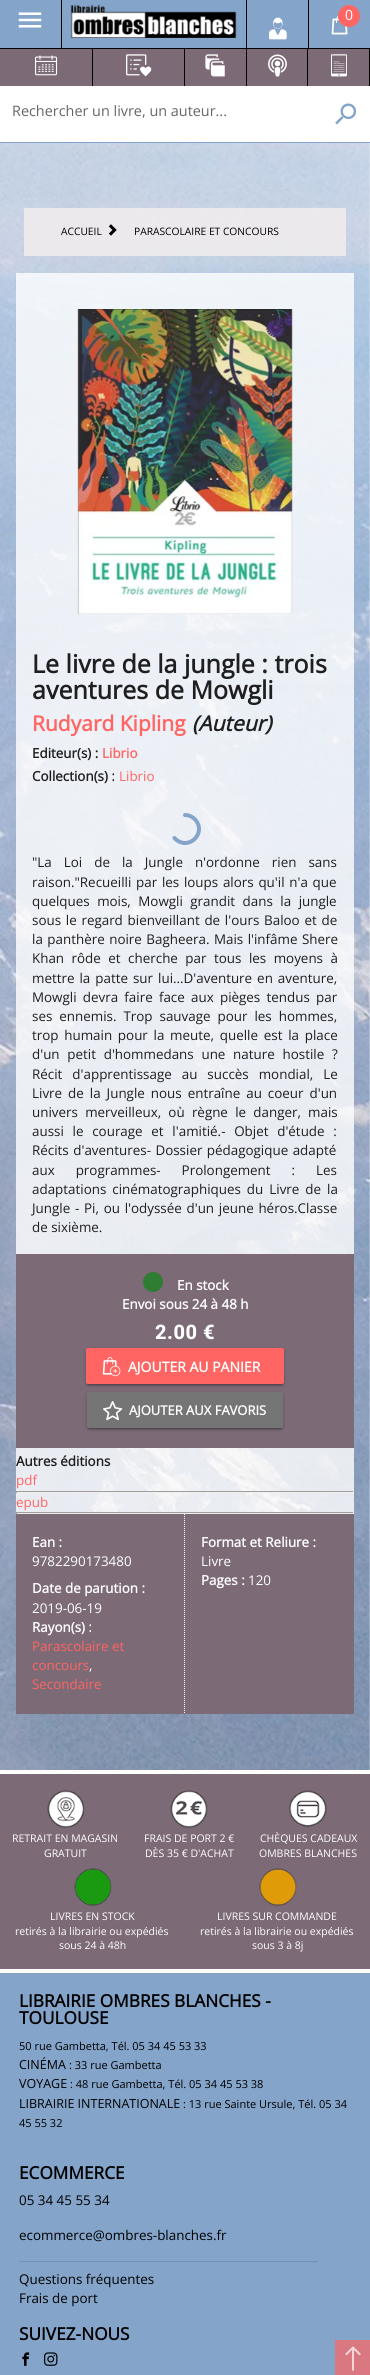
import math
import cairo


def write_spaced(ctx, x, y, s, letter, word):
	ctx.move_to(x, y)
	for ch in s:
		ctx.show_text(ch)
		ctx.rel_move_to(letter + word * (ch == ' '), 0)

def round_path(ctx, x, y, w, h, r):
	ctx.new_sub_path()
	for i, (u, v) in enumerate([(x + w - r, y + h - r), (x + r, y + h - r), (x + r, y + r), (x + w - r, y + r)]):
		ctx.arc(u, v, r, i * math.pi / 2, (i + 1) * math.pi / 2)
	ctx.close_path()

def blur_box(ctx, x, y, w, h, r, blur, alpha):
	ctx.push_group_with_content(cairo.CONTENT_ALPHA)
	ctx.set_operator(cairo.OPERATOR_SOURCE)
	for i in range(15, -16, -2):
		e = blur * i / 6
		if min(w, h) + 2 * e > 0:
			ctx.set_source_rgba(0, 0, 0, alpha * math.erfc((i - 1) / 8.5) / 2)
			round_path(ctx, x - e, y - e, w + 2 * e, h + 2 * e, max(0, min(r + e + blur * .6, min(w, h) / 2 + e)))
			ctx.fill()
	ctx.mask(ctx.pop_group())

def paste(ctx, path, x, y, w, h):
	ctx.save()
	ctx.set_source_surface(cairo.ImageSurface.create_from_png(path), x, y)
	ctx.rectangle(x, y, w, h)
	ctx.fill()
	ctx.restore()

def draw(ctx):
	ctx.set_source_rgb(1, 1, 1)
	ctx.paint()
	paste(ctx, 'media/1.png', 0, 143, 370, 1627)
	ctx.set_source_rgb(0.486, 0.416, 0.467)
	ctx.rectangle(0, 49, 369, 37)
	ctx.fill()
	ctx.set_source_rgb(0.518, 0.643, 0.792)
	ctx.rectangle(0, 0, 61, 48)
	ctx.fill()
	ctx.set_source_rgb(0, 0, 0)
	ctx.rectangle(61, 0, 1, 48)
	ctx.fill()
	paste(ctx, 'media/2.png', 18, 12, 24, 16)
	ctx.set_source_rgb(0.518, 0.643, 0.792)
	ctx.rectangle(62, 0, 184, 48)
	ctx.fill()
	ctx.set_source_rgb(0, 0, 0)
	ctx.rectangle(246, 0, 1, 48)
	ctx.fill()
	paste(ctx, 'media/3.png', 70, 4, 167, 34)
	ctx.set_source_rgb(0.518, 0.643, 0.792)
	ctx.rectangle(247, 0, 61, 48)
	ctx.fill()
	paste(ctx, 'media/4.png', 269, 17, 18, 23)
	ctx.rectangle(309, 0, 61, 48)
	ctx.fill()
	ctx.set_source_rgb(0, 0, 0)
	ctx.rectangle(308, 0, 1, 48)
	ctx.fill()
	paste(ctx, 'media/5.png', 331, 15, 17, 20)
	ctx.set_source_rgb(1, 0.396, 0.384)
	ctx.arc(349, 16, 11, 0, 2 * math.pi)
	ctx.fill()
	ctx.select_font_face('Open Sans')
	ctx.set_font_size(14)
	ctx.set_source_rgb(1, 1, 1)
	ctx.move_to(345, 20)
	ctx.show_text('0')
	ctx.set_source_rgb(0, 0, 0)
	ctx.rectangle(0, 48, 370, 1)
	ctx.fill()
	ctx.rectangle(92, 48, 1, 38)
	ctx.fill()
	paste(ctx, 'media/6.png', 35, 55, 23, 21)
	ctx.rectangle(184, 48, 1, 38)
	ctx.fill()
	paste(ctx, 'media/7.png', 126, 54, 26, 23)
	ctx.rectangle(246, 48, 1, 38)
	ctx.fill()
	paste(ctx, 'media/8.png', 205, 54, 20, 23)
	ctx.rectangle(307, 48, 1, 38)
	ctx.fill()
	paste(ctx, 'media/9.png', 268, 54, 19, 23)
	ctx.rectangle(369, 48, 1, 38)
	ctx.fill()
	paste(ctx, 'media/10.png', 331, 54, 16, 23)
	ctx.set_source_rgb(0.518, 0.643, 0.792)
	ctx.rectangle(0, 142, 370, 1)
	ctx.fill()
	ctx.set_font_size(14.4)
	ctx.set_source_rgb(0.4, 0.4, 0.4)
	ctx.move_to(12, 116)
	ctx.show_text('Rechercher un livre, un auteur...')
	paste(ctx, 'media/11.png', 335, 103, 22, 22)
	ctx.set_source_rgba(0.953, 0.937, 0.929, 0.8)
	ctx.rectangle(24, 208, 322, 48)
	ctx.fill()
	ctx.set_font_size(10.25)
	ctx.set_source_rgb(0, 0, 0)
	ctx.move_to(61, 235)
	ctx.show_text('ACCUEIL')
	paste(ctx, 'media/12.png', 108, 224, 9, 12)
	ctx.move_to(134, 235)
	ctx.show_text('PARASCOLAIRE ET CONCOURS')
	ctx.set_source_rgba(1, 1, 1, 0.8)
	ctx.rectangle(16, 273, 338, 1239)
	ctx.fill()
	paste(ctx, 'media/13.png', 77, 309, 216, 305)
	ctx.select_font_face('Open Sans', cairo.FONT_SLANT_NORMAL, cairo.FONT_WEIGHT_BOLD)
	ctx.set_font_size(25)
	ctx.set_source_rgb(0.122, 0.122, 0.125)
	ctx.move_to(32, 673)
	ctx.show_text('Le livre de la jungle : trois')
	ctx.move_to(32, 699)
	ctx.show_text('aventures de Mowgli')
	ctx.set_font_size(21)
	ctx.set_source_rgb(1, 0.396, 0.384)
	ctx.move_to(32, 731)
	ctx.show_text('Rudyard Kipling')
	ctx.select_font_face('Open Sans', cairo.FONT_SLANT_ITALIC, cairo.FONT_WEIGHT_BOLD)
	ctx.set_source_rgb(0.122, 0.122, 0.125)
	ctx.move_to(192, 731)
	ctx.show_text('(Auteur)')
	ctx.select_font_face('Open Sans', cairo.FONT_SLANT_NORMAL, cairo.FONT_WEIGHT_BOLD)
	ctx.set_font_size(13.4)
	ctx.move_to(32, 758)
	ctx.show_text('Editeur(s) :')
	ctx.set_source_rgb(1, 0.396, 0.384)
	ctx.move_to(102, 758)
	ctx.show_text('Librio')
	ctx.set_source_rgb(0.122, 0.122, 0.125)
	ctx.move_to(32, 781)
	ctx.show_text('Collection(s) :')
	ctx.select_font_face('Open Sans')
	ctx.set_source_rgb(1, 0.396, 0.384)
	ctx.move_to(119, 781)
	ctx.show_text('Librio')
	ctx.new_path()
	ctx.move_to(185, 815)
	ctx.curve_to(192.5, 815, 199, 821.5, 199, 829)
	ctx.curve_to(199, 836.5, 192.5, 843, 185, 843)
	ctx.curve_to(181, 843, 177, 841, 174.5, 838)
	ctx.set_source_rgb(0.518, 0.643, 0.792)
	ctx.set_line_width(4)
	ctx.set_line_cap(cairo.LINE_CAP_ROUND)
	ctx.stroke()
	ctx.set_source_rgb(0.122, 0.122, 0.125)
	write_spaced(ctx, 32, 867, '"La Loi de la Jungle n\'ordonne rien sans', 0, 8.5)
	write_spaced(ctx, 32, 887, 'raison."Recueilli par les loups alors qu\'il n\'a que', 0, 1.25)
	write_spaced(ctx, 32, 906, 'quelques mois, Mowgli grandit dans la jungle', 0, 4)
	write_spaced(ctx, 32, 925, 'sous le regard bienveillant de l\'ours Baloo et de', 0, 1.25)
	write_spaced(ctx, 32, 944, 'la panthère noire Bagheera. Mais l\'infâme Shere', 0, 1)
	write_spaced(ctx, 32, 963, 'Khan rôde et cherche par tous les moyens à', 0, 4)
	write_spaced(ctx, 32, 983, 'mettre la patte sur lui...D\'aventure en aventure,', 0, 1.5)
	write_spaced(ctx, 32, 1002, 'Mowgli devra faire face aux pièges tendus par', 0, 2.75)
	write_spaced(ctx, 32, 1021, 'ses ennemis. Trop sauvage pour les hommes,', 0, 3.5)
	write_spaced(ctx, 32, 1040, 'trop humain pour la meute, quelle est la place', 0, 2.25)
	write_spaced(ctx, 32, 1059, 'd\'un petit d\'hommedans une nature hostile ?', 0, 4.25)
	write_spaced(ctx, 32, 1079, 'Récit d\'apprentissage au succès mondial, Le', 0, 6.5)
	write_spaced(ctx, 32, 1098, 'Livre de la Jungle nous entraîne au coeur d\'un', 0, 2.5)
	write_spaced(ctx, 32, 1117, 'univers merveilleux, où règne le danger, mais', 0, 3.75)
	write_spaced(ctx, 32, 1136, 'aussi le courage et l\'amitié.- Objet d\'étude :', 0, 5.25)
	write_spaced(ctx, 32, 1155, 'Récits d\'aventures- Dossier pédagogique adapté', 0, 1)
	write_spaced(ctx, 32, 1175, 'aux programmes- Prolongement : Les', 0, 17.5)
	write_spaced(ctx, 32, 1194, 'adaptations cinématographiques du Livre de la', 0, 2.5)
	write_spaced(ctx, 32, 1213, 'Jungle - Pi, ou l\'odyssée d\'un jeune héros.Classe', 0, 1.25)
	ctx.move_to(32, 1232)
	ctx.show_text('de sixième.')
	ctx.set_source_rgb(0.486, 0.416, 0.467)
	ctx.rectangle(16, 1254, 338, 194)
	ctx.fill()
	paste(ctx, 'media/14.png', 143, 1272, 20, 20)
	ctx.select_font_face('Open Sans', cairo.FONT_SLANT_NORMAL, cairo.FONT_WEIGHT_BOLD)
	ctx.set_source_rgb(1, 1, 1)
	ctx.move_to(177, 1290)
	ctx.show_text('En stock')
	ctx.move_to(122, 1309)
	ctx.show_text('Envoi sous 24 à 48 h')
	ctx.select_font_face('Roboto ExtraBold')
	ctx.set_font_size(20)
	write_spaced(ctx, 155, 1339, '2.00 €', 0.5, 0)
	ctx.set_source_rgb(0, 0, 0)
	blur_box(ctx, 86, 1349, 198, 36, 2, 2.5, 0.12)
	blur_box(ctx, 86, 1350, 198, 36, 2, 1, 0.14)
	blur_box(ctx, 88, 1353, 194, 32, 0, 0.5, 0.2)
	ctx.set_source_rgb(1, 0.396, 0.384)
	round_path(ctx, 86, 1348, 198, 36, 2)
	ctx.fill()
	paste(ctx, 'media/15.png', 102, 1357, 19, 20)
	ctx.select_font_face('Open Sans', cairo.FONT_SLANT_NORMAL, cairo.FONT_WEIGHT_BOLD)
	ctx.set_font_size(14)
	ctx.set_source_rgb(1, 1, 1)
	ctx.move_to(128, 1372)
	ctx.show_text('AJOUTER AU PANIER')
	ctx.set_source_rgb(0, 0, 0)
	blur_box(ctx, 87, 1393, 196, 36, 2, 2.5, 0.12)
	blur_box(ctx, 87, 1394, 196, 36, 2, 1, 0.14)
	blur_box(ctx, 89, 1397, 192, 32, 0, 0.5, 0.2)
	ctx.set_source_rgb(0.459, 0.459, 0.459)
	round_path(ctx, 87, 1392, 196, 36, 2)
	ctx.fill()
	paste(ctx, 'media/16.png', 103, 1401, 20, 20)
	ctx.set_font_size(13)
	ctx.set_source_rgb(1, 1, 1)
	ctx.move_to(129, 1415)
	ctx.show_text('AJOUTER AUX FAVORIS')
	ctx.set_font_size(13.4)
	ctx.set_source_rgb(0.122, 0.122, 0.125)
	ctx.move_to(16, 1466)
	ctx.show_text('Autres éditions')
	ctx.select_font_face('Open Sans')
	ctx.set_source_rgb(1, 0.396, 0.384)
	ctx.move_to(16, 1485)
	ctx.show_text('pdf')
	ctx.set_source_rgb(0.624, 0.624, 0.624)
	ctx.rectangle(16, 1491, 338, 1)
	ctx.fill()
	ctx.set_source_rgb(0.933, 0.933, 0.933)
	ctx.rectangle(353, 1491, 1, 2)
	ctx.rectangle(16, 1492, 338, 1)
	ctx.fill()
	ctx.set_source_rgb(0.624, 0.624, 0.624)
	ctx.rectangle(16, 1491, 1, 2)
	ctx.fill()
	ctx.set_source_rgb(1, 0.396, 0.384)
	ctx.move_to(16, 1507)
	ctx.show_text('epub')
	ctx.set_source_rgb(0.624, 0.624, 0.624)
	ctx.rectangle(16, 1512, 338, 1)
	ctx.fill()
	ctx.set_source_rgb(0.933, 0.933, 0.933)
	ctx.rectangle(353, 1512, 1, 2)
	ctx.rectangle(16, 1513, 338, 1)
	ctx.fill()
	ctx.set_source_rgb(0.624, 0.624, 0.624)
	ctx.rectangle(16, 1512, 1, 2)
	ctx.fill()
	ctx.set_source_rgb(0.486, 0.416, 0.467)
	ctx.rectangle(16, 1514, 338, 200)
	ctx.fill()
	ctx.new_path()
	ctx.move_to(184.5, 1514)
	ctx.line_to(184.5, 1714)
	ctx.set_source_rgb(1, 1, 1)
	ctx.set_line_width(1)
	ctx.set_line_cap(cairo.LINE_CAP_BUTT)
	ctx.set_dash([1, 1])
	ctx.stroke()
	ctx.select_font_face('Open Sans', cairo.FONT_SLANT_NORMAL, cairo.FONT_WEIGHT_BOLD)
	ctx.move_to(32, 1547)
	ctx.show_text('Ean :')
	ctx.select_font_face('Open Sans')
	ctx.move_to(32, 1566)
	ctx.show_text('9782290173480')
	ctx.select_font_face('Open Sans', cairo.FONT_SLANT_NORMAL, cairo.FONT_WEIGHT_BOLD)
	ctx.move_to(32, 1593)
	ctx.show_text('Date de parution :')
	ctx.select_font_face('Open Sans')
	ctx.move_to(32, 1613)
	ctx.show_text('2019-06-19')
	ctx.select_font_face('Open Sans', cairo.FONT_SLANT_NORMAL, cairo.FONT_WEIGHT_BOLD)
	ctx.move_to(32, 1632)
	ctx.show_text('Rayon(s) :')
	ctx.select_font_face('Open Sans')
	ctx.set_source_rgb(1, 0.396, 0.384)
	ctx.move_to(32, 1651)
	ctx.show_text('Parascolaire et')
	ctx.move_to(32, 1670)
	ctx.show_text('concours')
	ctx.set_source_rgb(1, 1, 1)
	ctx.move_to(89, 1670)
	ctx.show_text(',')
	ctx.set_source_rgb(1, 0.396, 0.384)
	ctx.move_to(32, 1689)
	ctx.show_text('Secondaire')
	ctx.select_font_face('Open Sans', cairo.FONT_SLANT_NORMAL, cairo.FONT_WEIGHT_BOLD)
	ctx.set_source_rgb(1, 1, 1)
	ctx.move_to(201, 1547)
	ctx.show_text('Format et Reliure :')
	ctx.select_font_face('Open Sans')
	ctx.move_to(201, 1566)
	ctx.show_text('Livre')
	ctx.select_font_face('Open Sans', cairo.FONT_SLANT_NORMAL, cairo.FONT_WEIGHT_BOLD)
	ctx.move_to(201, 1585)
	ctx.show_text('Pages :')
	ctx.select_font_face('Open Sans')
	ctx.move_to(248, 1585)
	ctx.show_text('120')
	ctx.set_source_rgb(0.518, 0.643, 0.792)
	ctx.rectangle(0, 1973, 370, 402)
	ctx.fill()
	ctx.set_source_rgb(0.855, 0.471, 0.506)
	ctx.rectangle(335, 2340, 35, 35)
	ctx.fill()
	paste(ctx, 'media/17.png', 345, 2346, 16, 25)
	ctx.set_source_rgb(0.486, 0.416, 0.467)
	ctx.rectangle(0, 1774, 370, 195)
	ctx.fill()
	paste(ctx, 'media/18.png', 47, 1790, 38, 38)
	ctx.set_font_size(10.5)
	ctx.set_source_rgb(1, 1, 1)
	ctx.move_to(12, 1842)
	ctx.show_text('RETRAIT EN MAGASIN')
	ctx.move_to(44, 1857)
	ctx.show_text('GRATUIT')
	paste(ctx, 'media/19.png', 170, 1790, 38, 38)
	ctx.move_to(144, 1842)
	ctx.show_text('FRAIS DE PORT 2 €')
	ctx.move_to(145, 1857)
	ctx.show_text('DÈS 35 € D\'ACHAT')
	paste(ctx, 'media/20.png', 289, 1790, 38, 38)
	ctx.move_to(260, 1842)
	ctx.show_text('CHÈQUES CADEAUX')
	ctx.move_to(259, 1857)
	ctx.show_text('OMBRES BLANCHES')
	paste(ctx, 'media/21.png', 74, 1868, 38, 38)
	for x, y, s in [
		(50, 1920, 'LIVRES EN STOCK'),
		(15, 1935, 'retirés à la librairie ou expédiés'),
		(59, 1949, 'sous 24 à 48h'),
	]:
		ctx.move_to(x, y)
		ctx.show_text(s)
	paste(ctx, 'media/22.png', 259, 1868, 38, 38)
	for x, y, s in [
		(217, 1920, 'LIVRES SUR COMMANDE'),
		(200, 1935, 'retirés à la librairie ou expédiés'),
		(252, 1949, 'sous 3 à 8j'),
	]:
		ctx.move_to(x, y)
		ctx.show_text(s)
	ctx.select_font_face('Open Sans', cairo.FONT_SLANT_NORMAL, cairo.FONT_WEIGHT_BOLD)
	ctx.set_font_size(17.25)
	ctx.set_source_rgb(0, 0, 0)
	ctx.move_to(19, 2007)
	ctx.show_text('LIBRAIRIE OMBRES BLANCHES -')
	ctx.move_to(19, 2024)
	ctx.show_text('TOULOUSE')
	ctx.select_font_face('Open Sans')
	ctx.set_font_size(11)
	ctx.move_to(19, 2050)
	ctx.show_text('50 rue Gambetta, Tél. 05 34 45 53 33')
	ctx.set_font_size(12.5)
	ctx.move_to(19, 2069)
	ctx.show_text('CINÉMA')
	ctx.set_font_size(11)
	ctx.move_to(69, 2069)
	ctx.show_text(': 33 rue Gambetta')
	ctx.set_font_size(12.5)
	ctx.move_to(19, 2088)
	ctx.show_text('VOYAGE')
	ctx.set_font_size(11)
	ctx.move_to(70, 2088)
	ctx.show_text(': 48 rue Gambetta, Tél. 05 34 45 53 38')
	ctx.set_font_size(12.5)
	ctx.move_to(19, 2108)
	ctx.show_text('LIBRAIRIE INTERNATIONALE')
	ctx.set_font_size(11)
	ctx.move_to(183, 2108)
	ctx.show_text(': 13 rue Sainte Ursule, Tél. 05 34')
	ctx.move_to(19, 2127)
	ctx.show_text('45 55 32')
	ctx.select_font_face('Open Sans', cairo.FONT_SLANT_NORMAL, cairo.FONT_WEIGHT_BOLD)
	ctx.set_font_size(17.25)
	ctx.move_to(19, 2179)
	ctx.show_text('ECOMMERCE')
	ctx.select_font_face('Open Sans')
	ctx.set_font_size(13.4)
	ctx.move_to(19, 2205)
	ctx.show_text('05 34 45 55 34')
	ctx.move_to(19, 2240)
	ctx.show_text('ecommerce@ombres-blanches.fr')
	ctx.set_source_rgb(0.455, 0.565, 0.698)
	ctx.rectangle(19, 2261, 299, 1)
	ctx.fill()
	ctx.set_source_rgb(0, 0, 0)
	ctx.move_to(19, 2284)
	ctx.show_text('Questions fréquentes')
	ctx.move_to(19, 2303)
	ctx.show_text('Frais de port')
	ctx.select_font_face('Open Sans', cairo.FONT_SLANT_NORMAL, cairo.FONT_WEIGHT_BOLD)
	ctx.set_font_size(17.25)
	ctx.move_to(19, 2340)
	ctx.show_text('SUIVEZ-NOUS')
	paste(ctx, 'media/23.png', 22, 2352, 8, 14)
	paste(ctx, 'media/24.png', 44, 2352, 14, 14)


surface = cairo.ImageSurface(cairo.FORMAT_RGB24, 370, 2375)
ctx = cairo.Context(surface)
options = cairo.FontOptions()
options.set_hint_metrics(cairo.HINT_METRICS_OFF)
options.set_hint_style(cairo.HINT_STYLE_NONE)
ctx.set_font_options(options)
ctx.set_miter_limit(4)
draw(ctx)
surface.write_to_png('image.png')
